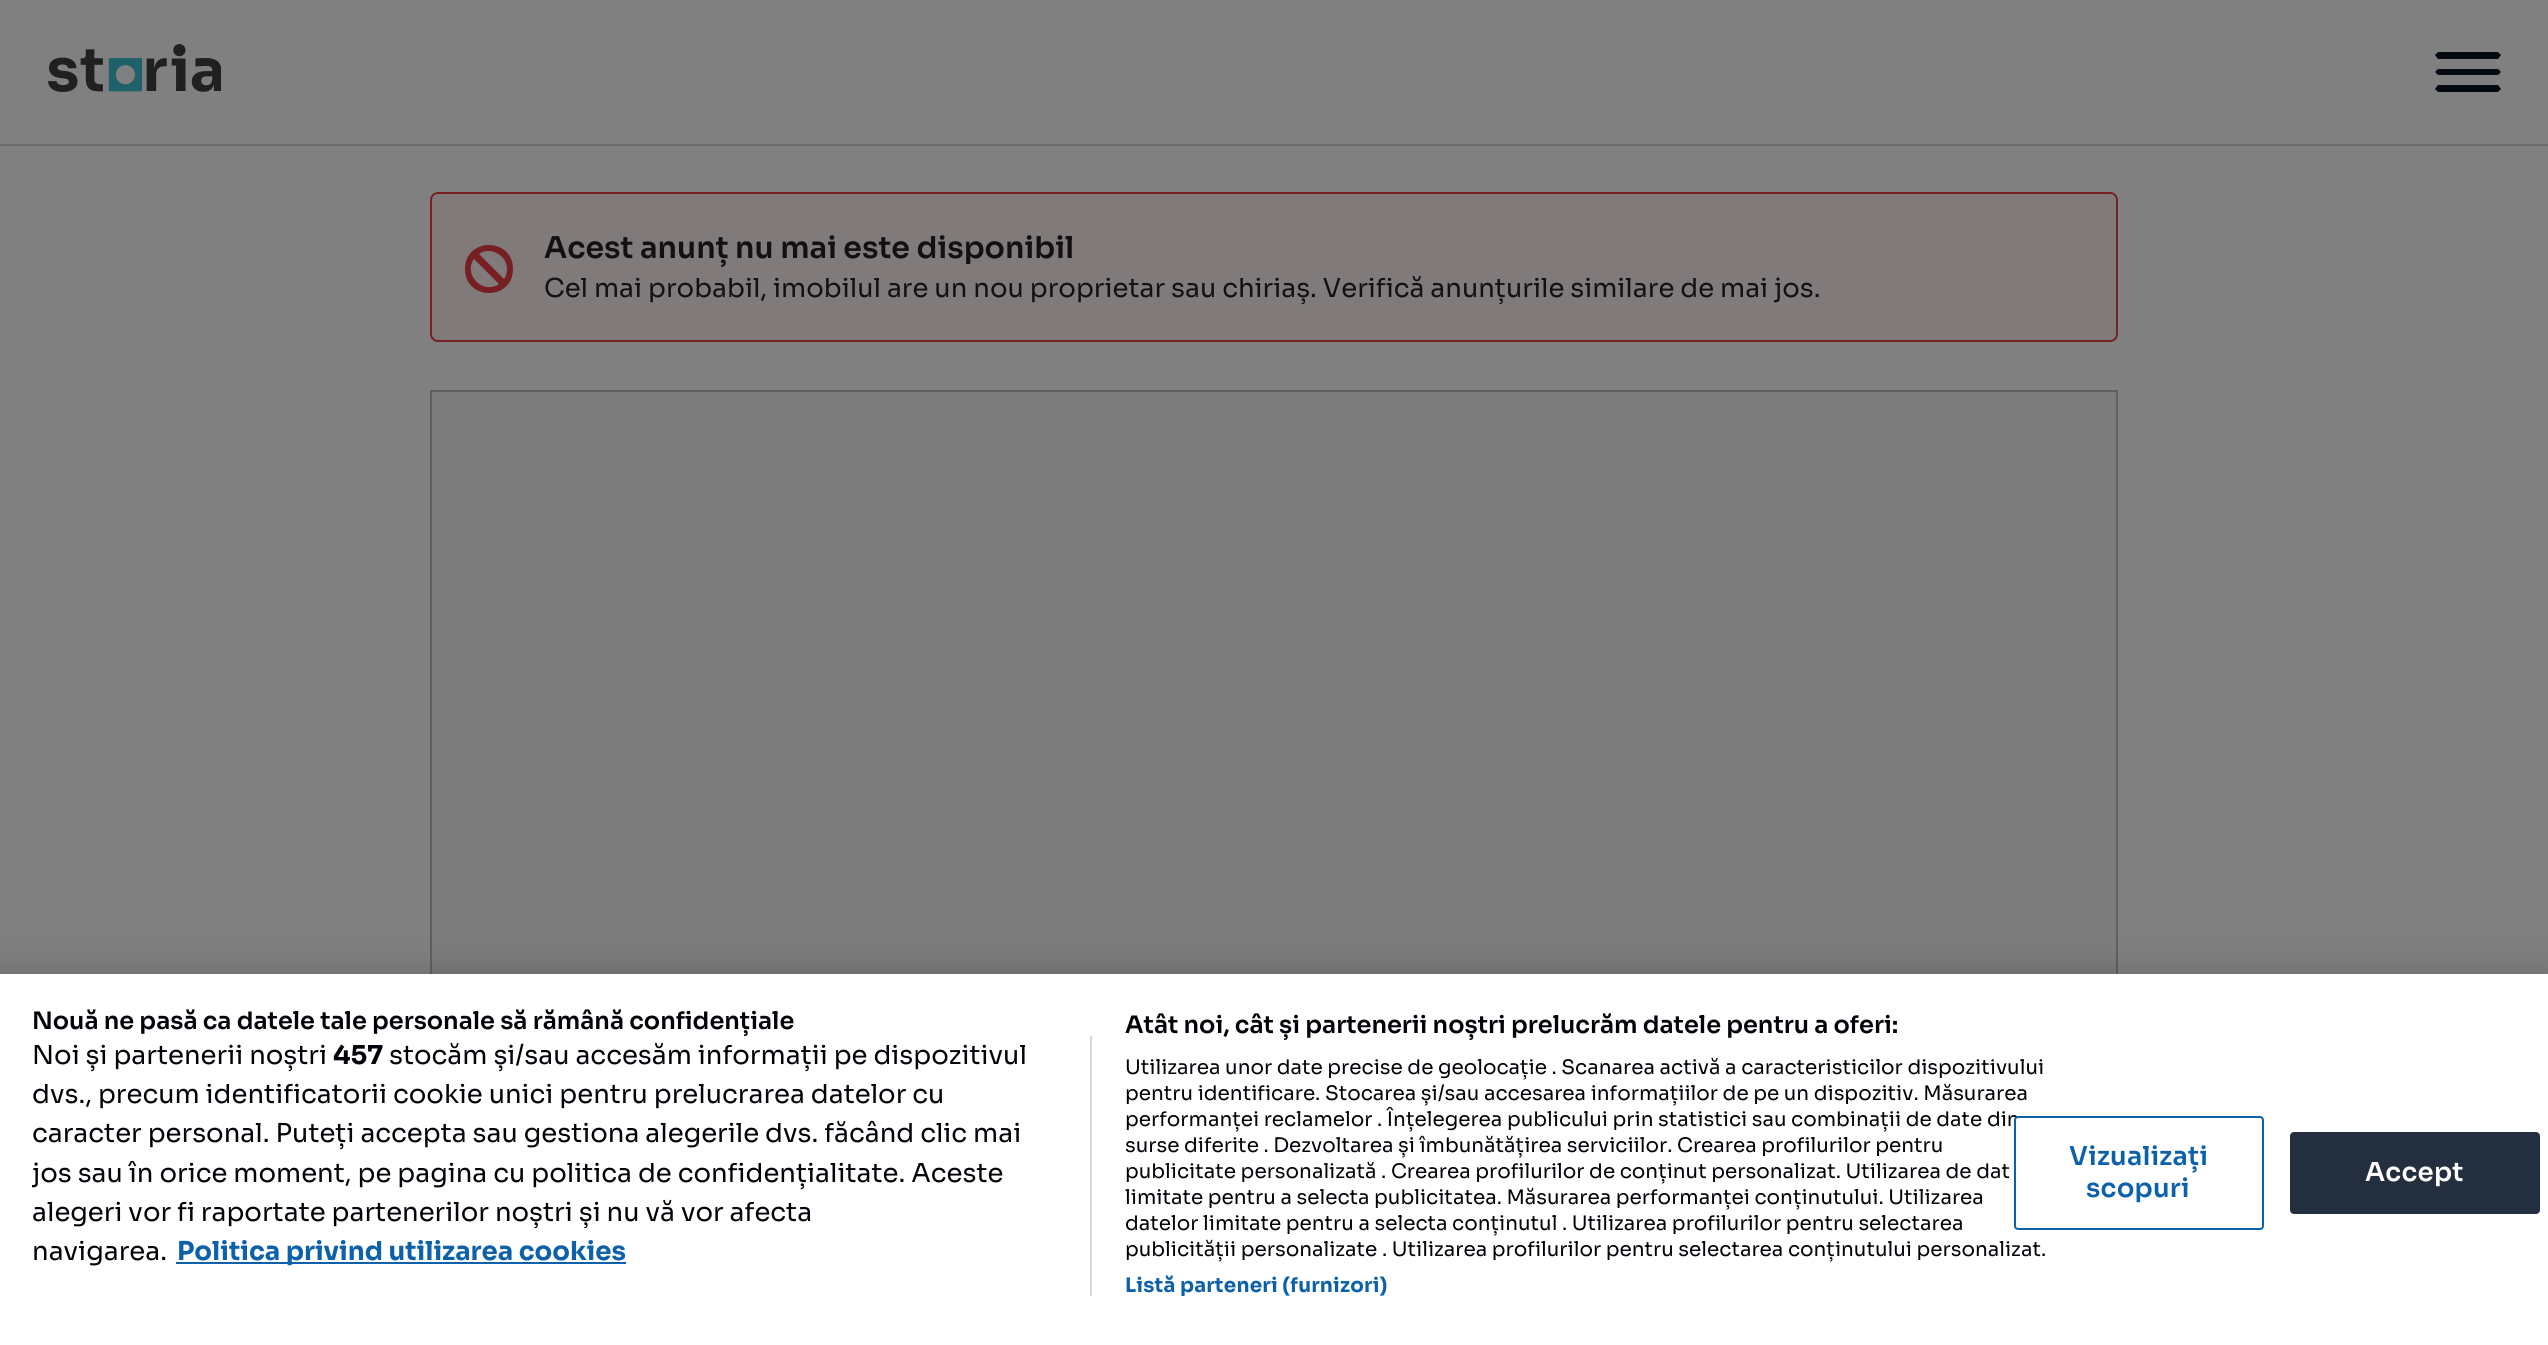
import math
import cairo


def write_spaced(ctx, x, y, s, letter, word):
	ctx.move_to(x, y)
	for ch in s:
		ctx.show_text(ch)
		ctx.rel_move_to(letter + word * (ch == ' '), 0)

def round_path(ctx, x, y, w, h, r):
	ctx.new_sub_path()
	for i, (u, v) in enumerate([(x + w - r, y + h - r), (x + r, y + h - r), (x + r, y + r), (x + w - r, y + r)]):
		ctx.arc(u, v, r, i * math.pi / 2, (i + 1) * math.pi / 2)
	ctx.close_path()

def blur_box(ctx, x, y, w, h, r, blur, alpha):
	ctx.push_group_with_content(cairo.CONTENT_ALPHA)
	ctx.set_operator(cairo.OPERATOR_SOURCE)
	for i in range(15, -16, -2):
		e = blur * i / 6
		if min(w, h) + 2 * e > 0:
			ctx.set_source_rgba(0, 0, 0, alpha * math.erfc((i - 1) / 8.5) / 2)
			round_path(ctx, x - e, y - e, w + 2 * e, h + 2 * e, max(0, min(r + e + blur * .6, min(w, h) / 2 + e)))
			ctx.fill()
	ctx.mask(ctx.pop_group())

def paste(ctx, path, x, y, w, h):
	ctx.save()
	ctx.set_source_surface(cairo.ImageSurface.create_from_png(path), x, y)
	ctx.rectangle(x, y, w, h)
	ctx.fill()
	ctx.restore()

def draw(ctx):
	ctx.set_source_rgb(0.502, 0.502, 0.502)
	ctx.paint()
	ctx.set_source_rgb(0.416, 0.42, 0.427)
	ctx.rectangle(0, 144, 2548, 2)
	ctx.fill()
	paste(ctx, 'media/1.png', 48, 44, 173, 48)
	ctx.set_source_rgb(0.016, 0.035, 0.067)
	ctx.new_path()
	ctx.move_to(2435, 55)
	ctx.line_to(2438, 52)
	ctx.line_to(2498, 52)
	ctx.line_to(2501, 55)
	ctx.line_to(2498, 59)
	ctx.line_to(2438, 59)
	ctx.close_path()
	ctx.move_to(2438, 69)
	ctx.line_to(2435, 72)
	ctx.line_to(2438, 75)
	ctx.line_to(2498, 75)
	ctx.line_to(2501, 72)
	ctx.line_to(2498, 69)
	ctx.close_path()
	ctx.move_to(2438, 85)
	ctx.line_to(2435, 89)
	ctx.line_to(2438, 92)
	ctx.line_to(2498, 92)
	ctx.line_to(2501, 89)
	ctx.line_to(2498, 85)
	ctx.close_path()
	ctx.fill()
	ctx.set_source_rgb(0.502, 0.478, 0.478)
	round_path(ctx, 431, 193, 1686, 148, 7)
	ctx.fill_preserve()
	ctx.set_source_rgb(0.467, 0.125, 0.141)
	ctx.stroke()
	ctx.new_path()
	ctx.move_to(513, 269)
	ctx.curve_to(513, 301, 465, 301, 465, 269)
	ctx.curve_to(465, 237, 513, 237, 513, 269)
	ctx.move_to(474, 259)
	ctx.curve_to(463, 275, 483, 295, 499, 284)
	ctx.close_path()
	ctx.move_to(507, 269)
	ctx.curve_to(507, 255, 490, 246, 479, 254)
	ctx.line_to(504, 279)
	ctx.curve_to(506, 276, 507, 273, 507, 269)
	ctx.fill()
	ctx.select_font_face('Sora SemiBold')
	ctx.set_font_size(30)
	ctx.set_source_rgb(0.067, 0.067, 0.067)
	ctx.move_to(544, 258)
	ctx.show_text('Acest anunț nu mai este disponibil')
	ctx.select_font_face('Sora')
	ctx.set_font_size(26)
	ctx.move_to(544, 297)
	ctx.show_text('Cel mai probabil, imobilul are un nou proprietar sau chiriaș. Verifică anunțurile similare de mai jos.')
	ctx.rectangle(431, 391, 1686, 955)
	ctx.set_source_rgb(0.373, 0.373, 0.373)
	ctx.stroke()
	ctx.set_source_rgb(0.486, 0.486, 0.486)
	ctx.rectangle(432, 392, 1684, 582)
	ctx.fill()
	ctx.set_source_rgb(0, 0, 0)
	blur_box(ctx, 0, 974, 2548, 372, 0, 18, 0.2)
	ctx.set_source_rgb(1, 1, 1)
	ctx.rectangle(0, 974, 2548, 371)
	ctx.fill()
	ctx.select_font_face('Sora SemiBold')
	ctx.set_font_size(24)
	ctx.set_source_rgb(0.008, 0.012, 0.035)
	ctx.move_to(32, 1029)
	ctx.show_text('Nouă ne pasă ca datele tale personale să rămână confidențiale')
	ctx.move_to(1125, 1033)
	ctx.show_text('Atât noi, cât și partenerii noștri prelucrăm datele pentru a oferi:')
	ctx.select_font_face('Sora')
	ctx.set_font_size(20)
	for x, y, s in [
		(1125, 1074, 'Utilizarea unor date precise de geolocație . Scanarea activă a caracteristicilor dispozitivului'),
		(1125, 1100, 'pentru identificare. Stocarea și/sau accesarea informațiilor de pe un dispozitiv. Măsurarea'),
		(1125, 1126, 'performanței reclamelor . Înțelegerea publicului prin statistici sau combinații de date din'),
		(1125, 1152, 'surse diferite . Dezvoltarea și îmbunătățirea serviciilor. Crearea profilurilor pentru'),
		(1125, 1178, 'publicitate personalizată . Crearea profilurilor de conținut personalizat. Utilizarea de dat'),
		(1125, 1204, 'limitate pentru a selecta publicitatea. Măsurarea performanței conținutului. Utilizarea'),
		(1125, 1230, 'datelor limitate pentru a selecta conținutul . Utilizarea profilurilor pentru selectarea'),
		(1125, 1256, 'publicității personalizate . Utilizarea profilurilor pentru selectarea conținutului personalizat.'),
	]:
		ctx.move_to(x, y)
		ctx.show_text(s)
	ctx.select_font_face('Sora', cairo.FONT_SLANT_NORMAL, cairo.FONT_WEIGHT_BOLD)
	ctx.set_source_rgb(0.051, 0.38, 0.671)
	write_spaced(ctx, 1125, 1292, 'Listă parteneri (furnizori)', 0.2, 0)
	ctx.set_source_rgb(0.847, 0.847, 0.847)
	ctx.rectangle(1090, 1036, 2, 260)
	ctx.fill()
	ctx.select_font_face('Sora')
	ctx.set_font_size(26)
	ctx.set_source_rgb(0.008, 0.012, 0.035)
	ctx.move_to(32, 1064)
	ctx.show_text('Noi și partenerii noștri')
	ctx.select_font_face('Sora', cairo.FONT_SLANT_NORMAL, cairo.FONT_WEIGHT_BOLD)
	ctx.move_to(333, 1064)
	ctx.show_text('457')
	ctx.select_font_face('Sora')
	for x, y, s in [
		(389, 1064, 'stocăm și/sau accesăm informații pe dispozitivul'),
		(32, 1103, 'dvs., precum identificatorii cookie unici pentru prelucrarea datelor cu'),
		(32, 1142, 'caracter personal. Puteți accepta sau gestiona alegerile dvs. făcând clic mai'),
		(32, 1182, 'jos sau în orice moment, pe pagina cu politica de confidențialitate. Aceste'),
		(32, 1221, 'alegeri vor fi raportate partenerilor noștri și nu vă vor afecta'),
		(32, 1260, 'navigarea.'),
	]:
		ctx.move_to(x, y)
		ctx.show_text(s)
	ctx.set_source_rgb(0.051, 0.38, 0.671)
	ctx.rectangle(176, 1262, 450, 2)
	ctx.fill()
	ctx.select_font_face('Sora', cairo.FONT_SLANT_NORMAL, cairo.FONT_WEIGHT_BOLD)
	ctx.move_to(177, 1260)
	ctx.show_text('Politica privind utilizarea cookies')
	ctx.set_source_rgb(1, 1, 1)
	round_path(ctx, 2015, 1117, 248, 112, 3)
	ctx.fill_preserve()
	ctx.set_source_rgb(0.051, 0.38, 0.671)
	ctx.stroke()
	ctx.select_font_face('Sora SemiBold')
	write_spaced(ctx, 2069, 1165, 'Vizualizați', 0.25, 0)
	write_spaced(ctx, 2086, 1197, 'scopuri', 0.25, 0)
	ctx.set_source_rgb(0.137, 0.18, 0.247)
	round_path(ctx, 2291, 1133, 248, 80, 3)
	ctx.fill_preserve()
	ctx.stroke()
	ctx.set_source_rgb(1, 1, 1)
	write_spaced(ctx, 2365, 1181, 'Accept', 0.25, 0)


surface = cairo.ImageSurface(cairo.FORMAT_RGB24, 2548, 1345)
ctx = cairo.Context(surface)
options = cairo.FontOptions()
options.set_hint_metrics(cairo.HINT_METRICS_OFF)
options.set_hint_style(cairo.HINT_STYLE_NONE)
ctx.set_font_options(options)
ctx.set_miter_limit(4)
draw(ctx)
surface.write_to_png('image.png')
